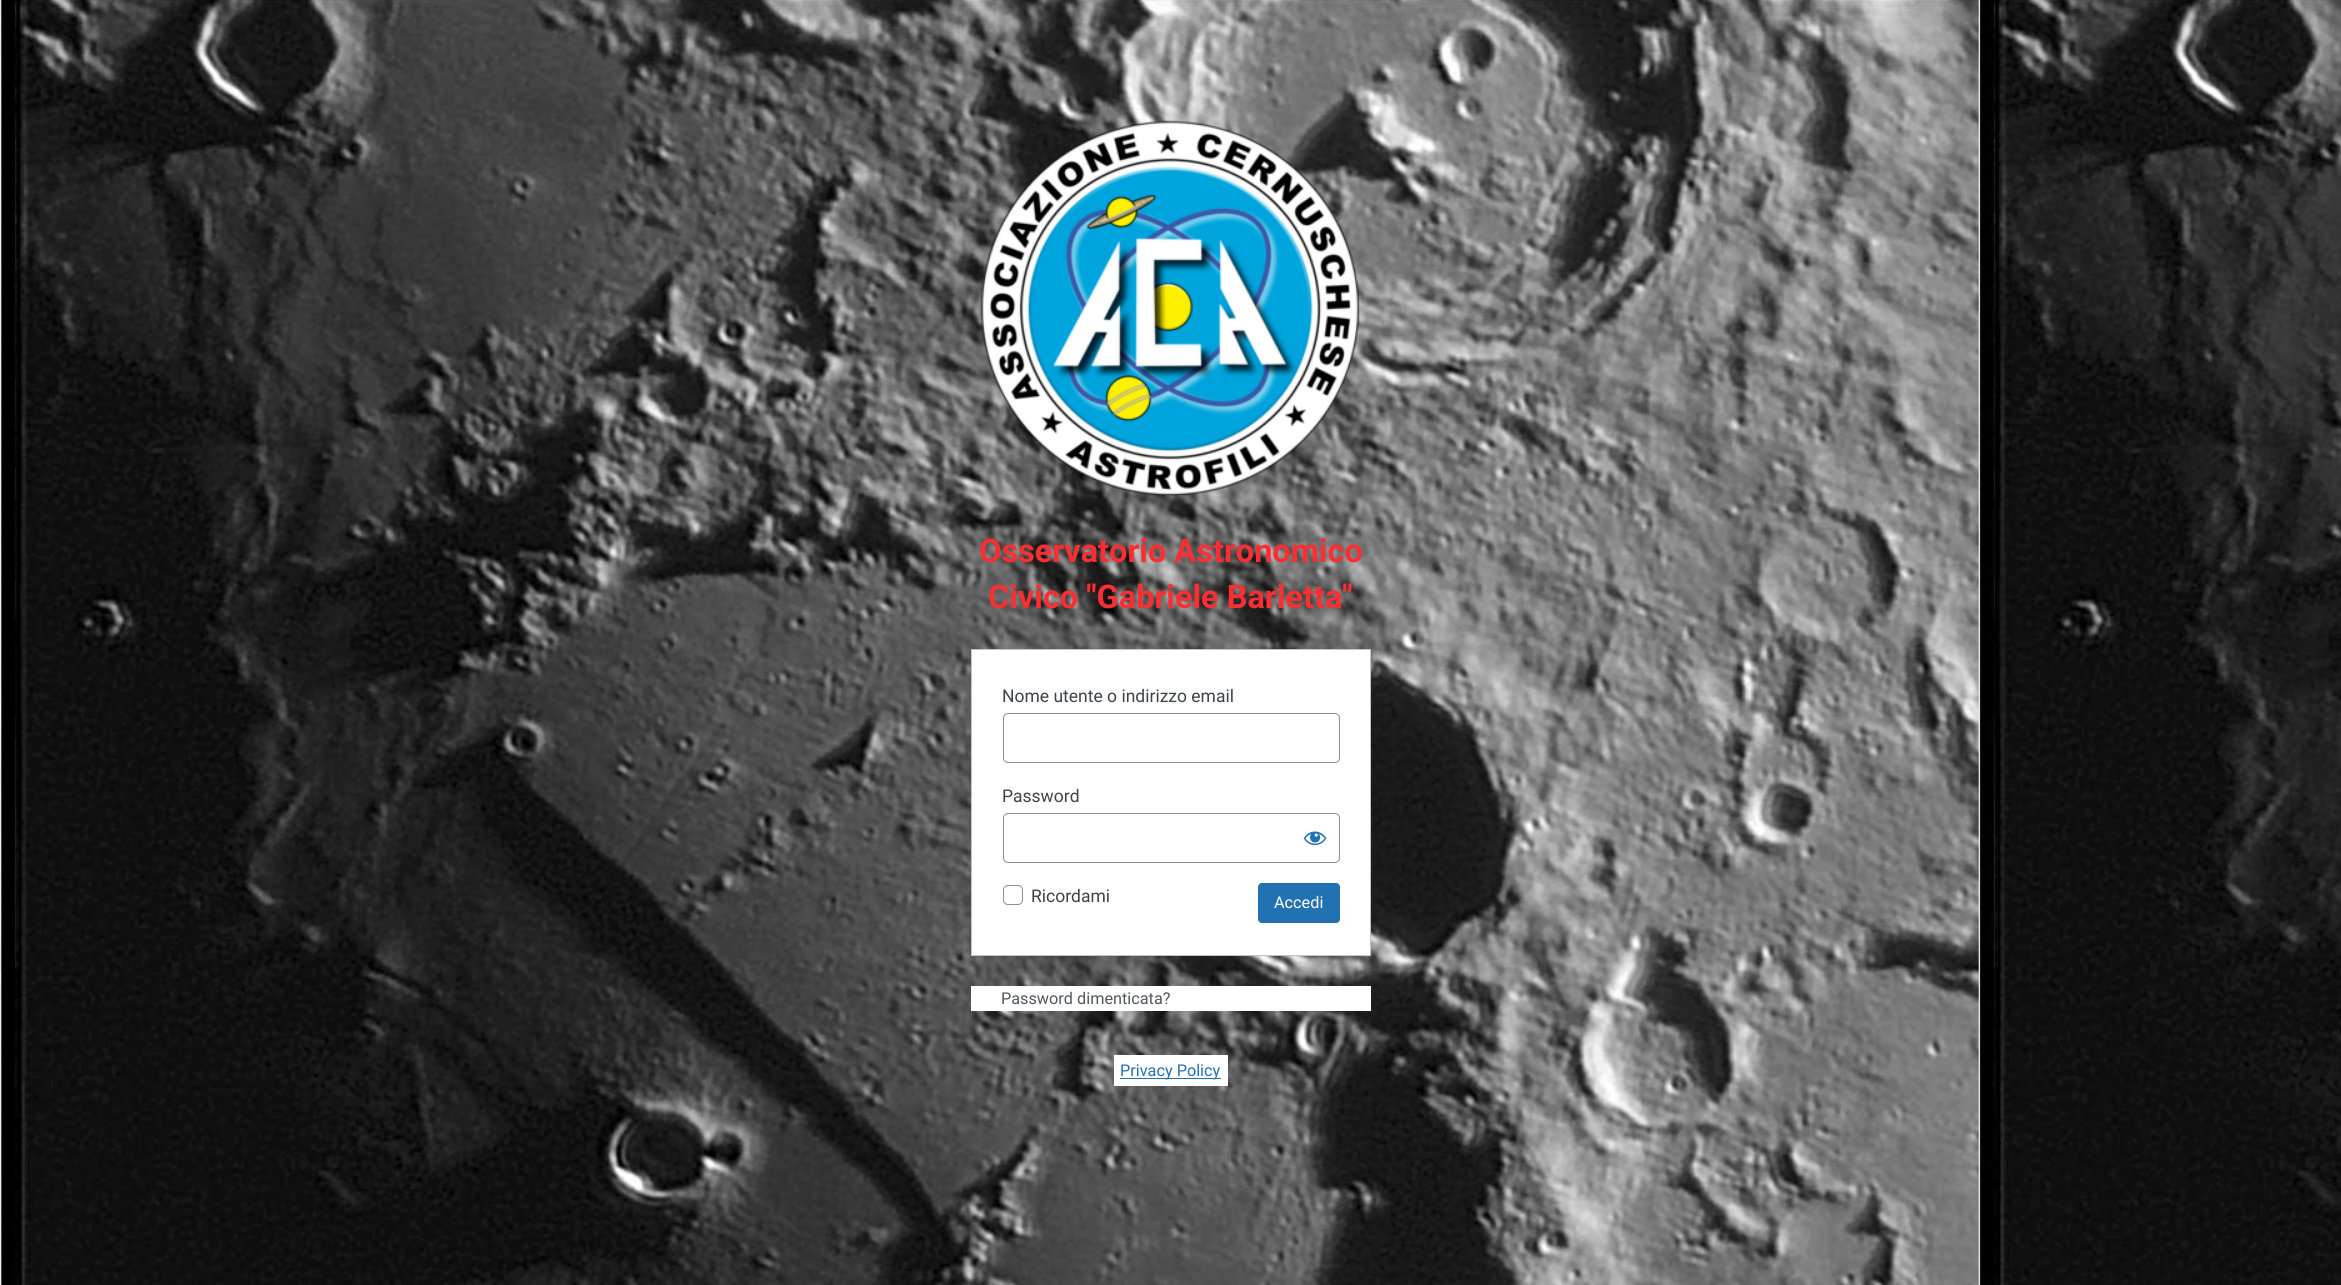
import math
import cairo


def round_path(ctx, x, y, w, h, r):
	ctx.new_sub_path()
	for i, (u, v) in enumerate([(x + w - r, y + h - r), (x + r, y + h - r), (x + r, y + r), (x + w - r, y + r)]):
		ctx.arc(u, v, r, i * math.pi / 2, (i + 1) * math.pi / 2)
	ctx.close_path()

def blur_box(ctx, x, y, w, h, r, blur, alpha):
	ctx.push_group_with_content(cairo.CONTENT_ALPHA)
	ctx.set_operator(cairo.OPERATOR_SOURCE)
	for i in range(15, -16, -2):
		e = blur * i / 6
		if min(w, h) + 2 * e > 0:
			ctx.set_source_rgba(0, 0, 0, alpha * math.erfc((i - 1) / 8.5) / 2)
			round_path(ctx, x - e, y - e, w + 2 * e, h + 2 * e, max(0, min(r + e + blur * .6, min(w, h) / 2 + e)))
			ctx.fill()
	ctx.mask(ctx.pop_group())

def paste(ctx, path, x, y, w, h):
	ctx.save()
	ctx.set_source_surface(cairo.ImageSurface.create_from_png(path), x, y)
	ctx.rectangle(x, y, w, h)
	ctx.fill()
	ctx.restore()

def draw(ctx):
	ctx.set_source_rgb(1, 1, 1)
	ctx.paint()
	paste(ctx, 'media/1.png', 0, 0, 2341, 1285)
	paste(ctx, 'media/2.png', 980, 120, 380, 377)
	ctx.select_font_face('Roboto', cairo.FONT_SLANT_NORMAL, cairo.FONT_WEIGHT_BOLD)
	ctx.set_font_size(32.5)
	ctx.set_source_rgb(0.984, 0.184, 0.196)
	ctx.move_to(979, 562)
	ctx.show_text('Osservatorio Astronomico')
	ctx.move_to(988, 608)
	ctx.show_text('Civico "Gabriele Barletta"')
	ctx.set_source_rgb(0, 0, 0)
	blur_box(ctx, 971, 650, 400, 308, 0, 2, 0.04)
	ctx.set_source_rgb(1, 1, 1)
	ctx.rectangle(971.5, 649.5, 399, 306)
	ctx.fill_preserve()
	ctx.set_source_rgb(0.765, 0.769, 0.78)
	ctx.set_line_width(1)
	ctx.stroke()
	ctx.select_font_face('Roboto')
	ctx.set_font_size(17.5)
	ctx.set_source_rgb(0.235, 0.263, 0.29)
	ctx.move_to(1002, 702)
	ctx.show_text('Nome utente o indirizzo email')
	round_path(ctx, 1003.5, 713.5, 336, 49, 4.5)
	ctx.set_source_rgb(0.549, 0.561, 0.58)
	ctx.stroke()
	ctx.set_source_rgb(0.235, 0.263, 0.29)
	ctx.move_to(1002, 802)
	ctx.show_text('Password')
	round_path(ctx, 1003.5, 813.5, 336, 49, 4.5)
	ctx.set_source_rgb(0.549, 0.561, 0.58)
	ctx.stroke()
	paste(ctx, 'media/3.png', 1303, 831, 24, 15)
	round_path(ctx, 1003.5, 885.5, 19, 19, 4.5)
	ctx.stroke()
	ctx.set_source_rgb(0.235, 0.263, 0.29)
	ctx.move_to(1031, 902)
	ctx.show_text('Ricordami')
	ctx.set_source_rgb(0.133, 0.443, 0.694)
	round_path(ctx, 1258.5, 883.5, 81, 39, 3.5)
	ctx.fill_preserve()
	ctx.stroke()
	ctx.set_font_size(16.25)
	ctx.set_source_rgb(1, 1, 1)
	ctx.move_to(1274, 908)
	ctx.show_text('Accedi')
	ctx.rectangle(971, 986, 400, 25)
	ctx.fill()
	ctx.set_source_rgb(0.314, 0.341, 0.369)
	ctx.move_to(1001, 1004)
	ctx.show_text('Password dimenticata?')
	ctx.set_source_rgb(1, 1, 1)
	ctx.rectangle(1114, 1055, 114, 31)
	ctx.fill()
	ctx.set_source_rgb(0.133, 0.443, 0.694)
	ctx.rectangle(1120, 1078, 101, 1)
	ctx.fill()
	ctx.move_to(1120, 1076)
	ctx.show_text('Privacy Policy')


surface = cairo.ImageSurface(cairo.FORMAT_RGB24, 2341, 1285)
ctx = cairo.Context(surface)
options = cairo.FontOptions()
options.set_hint_metrics(cairo.HINT_METRICS_OFF)
options.set_hint_style(cairo.HINT_STYLE_NONE)
ctx.set_font_options(options)
ctx.set_miter_limit(4)
draw(ctx)
surface.write_to_png('image.png')
